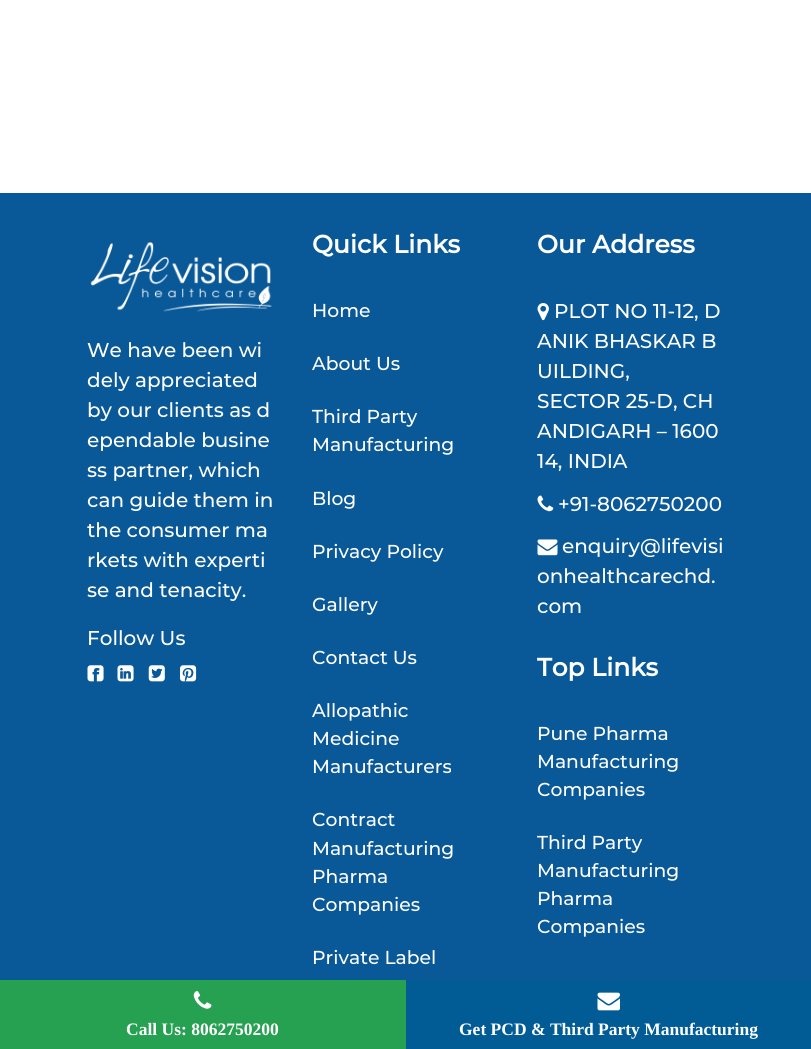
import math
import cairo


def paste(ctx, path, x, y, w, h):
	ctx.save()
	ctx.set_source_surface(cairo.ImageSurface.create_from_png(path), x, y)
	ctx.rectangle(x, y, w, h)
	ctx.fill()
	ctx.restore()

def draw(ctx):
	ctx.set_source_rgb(1, 1, 1)
	ctx.paint()
	ctx.set_source_rgb(0.039, 0.345, 0.596)
	ctx.rectangle(0, 193, 811, 787)
	ctx.fill()
	paste(ctx, 'media/1.png', 90, 242, 182, 70)
	ctx.select_font_face('Montserrat Medium')
	ctx.set_font_size(20)
	ctx.set_source_rgb(1, 1, 1)
	for x, y, s in [
		(87, 357, 'We have been wi'),
		(87, 387, 'dely appreciated'),
		(87, 417, 'by our clients as d'),
		(87, 447, 'ependable busine'),
		(87, 477, 'ss partner, which'),
		(87, 507, 'can guide them in'),
		(87, 537, 'the consumer ma'),
		(87, 567, 'rkets with experti'),
		(87, 597, 'se and tenacity.'),
		(87, 645, 'Follow Us'),
	]:
		ctx.move_to(x, y)
		ctx.show_text(s)
	paste(ctx, 'media/2.png', 87, 665, 17, 17)
	paste(ctx, 'media/3.png', 117, 665, 17, 17)
	paste(ctx, 'media/4.png', 148, 665, 17, 17)
	paste(ctx, 'media/5.png', 180, 665, 17, 17)
	ctx.select_font_face('Montserrat', cairo.FONT_SLANT_NORMAL, cairo.FONT_WEIGHT_BOLD)
	ctx.set_font_size(25)
	ctx.move_to(312, 253)
	ctx.show_text('Quick Links')
	ctx.select_font_face('Montserrat Medium')
	ctx.set_font_size(18.75)
	for x, y, s in [
		(312, 317, 'Home'),
		(312, 370, 'About Us'),
		(312, 423, 'Third Party'),
		(312, 451, 'Manufacturing'),
		(312, 505, 'Blog'),
		(312, 558, 'Privacy Policy'),
		(312, 611, 'Gallery'),
		(312, 664, 'Contact Us'),
		(312, 717, 'Allopathic'),
		(312, 745, 'Medicine'),
		(312, 773, 'Manufacturers'),
		(312, 826, 'Contract'),
		(312, 855, 'Manufacturing'),
		(312, 883, 'Pharma'),
		(312, 911, 'Companies'),
		(312, 964, 'Private Label'),
	]:
		ctx.move_to(x, y)
		ctx.show_text(s)
	ctx.select_font_face('Montserrat', cairo.FONT_SLANT_NORMAL, cairo.FONT_WEIGHT_BOLD)
	ctx.set_font_size(25)
	ctx.move_to(537, 253)
	ctx.show_text('Our Address')
	paste(ctx, 'media/6.png', 537, 303, 12, 18)
	ctx.select_font_face('Montserrat Medium')
	ctx.set_font_size(20)
	for x, y, s in [
		(554, 318, 'PLOT NO 11-12, D'),
		(537, 348, 'ANIK BHASKAR B'),
		(537, 378, 'UILDING,'),
		(537, 408, 'SECTOR 25-D, CH'),
		(537, 438, 'ANDIGARH – 1600'),
		(537, 468, '14, INDIA'),
	]:
		ctx.move_to(x, y)
		ctx.show_text(s)
	paste(ctx, 'media/7.png', 537, 495, 17, 17)
	ctx.move_to(558, 511)
	ctx.show_text('+91-8062750200')
	paste(ctx, 'media/8.png', 537, 539, 21, 17)
	for x, y, s in [
		(562, 553, 'enquiry@lifevisi'),
		(537, 583, 'onhealthcarechd.'),
		(537, 613, 'com'),
	]:
		ctx.move_to(x, y)
		ctx.show_text(s)
	ctx.select_font_face('Montserrat', cairo.FONT_SLANT_NORMAL, cairo.FONT_WEIGHT_BOLD)
	ctx.set_font_size(25)
	ctx.move_to(537, 676)
	ctx.show_text('Top Links')
	ctx.select_font_face('Montserrat Medium')
	ctx.set_font_size(18.75)
	for x, y, s in [
		(537, 740, 'Pune Pharma'),
		(537, 768, 'Manufacturing'),
		(537, 796, 'Companies'),
		(537, 849, 'Third Party'),
		(537, 877, 'Manufacturing'),
		(537, 905, 'Pharma'),
		(537, 933, 'Companies'),
	]:
		ctx.move_to(x, y)
		ctx.show_text(s)
	ctx.set_source_rgb(0.149, 0.627, 0.318)
	ctx.rectangle(0, 980, 406, 69)
	ctx.fill()
	paste(ctx, 'media/9.png', 193, 991, 19, 18)
	ctx.select_font_face('Liberation Serif', cairo.FONT_SLANT_NORMAL, cairo.FONT_WEIGHT_BOLD)
	ctx.set_font_size(17.5)
	ctx.set_source_rgb(1, 1, 1)
	ctx.move_to(126, 1035)
	ctx.show_text('Call Us: 8062750200')
	ctx.set_source_rgb(0.004, 0.361, 0.588)
	ctx.rectangle(406, 980, 405, 69)
	ctx.fill()
	paste(ctx, 'media/10.png', 597, 992, 23, 19)
	ctx.set_source_rgb(1, 1, 1)
	ctx.move_to(459, 1035)
	ctx.show_text('Get PCD & Third Party Manufacturing')


surface = cairo.ImageSurface(cairo.FORMAT_RGB24, 811, 1049)
ctx = cairo.Context(surface)
options = cairo.FontOptions()
options.set_hint_metrics(cairo.HINT_METRICS_OFF)
options.set_hint_style(cairo.HINT_STYLE_NONE)
ctx.set_font_options(options)
ctx.set_miter_limit(4)
draw(ctx)
surface.write_to_png('image.png')
